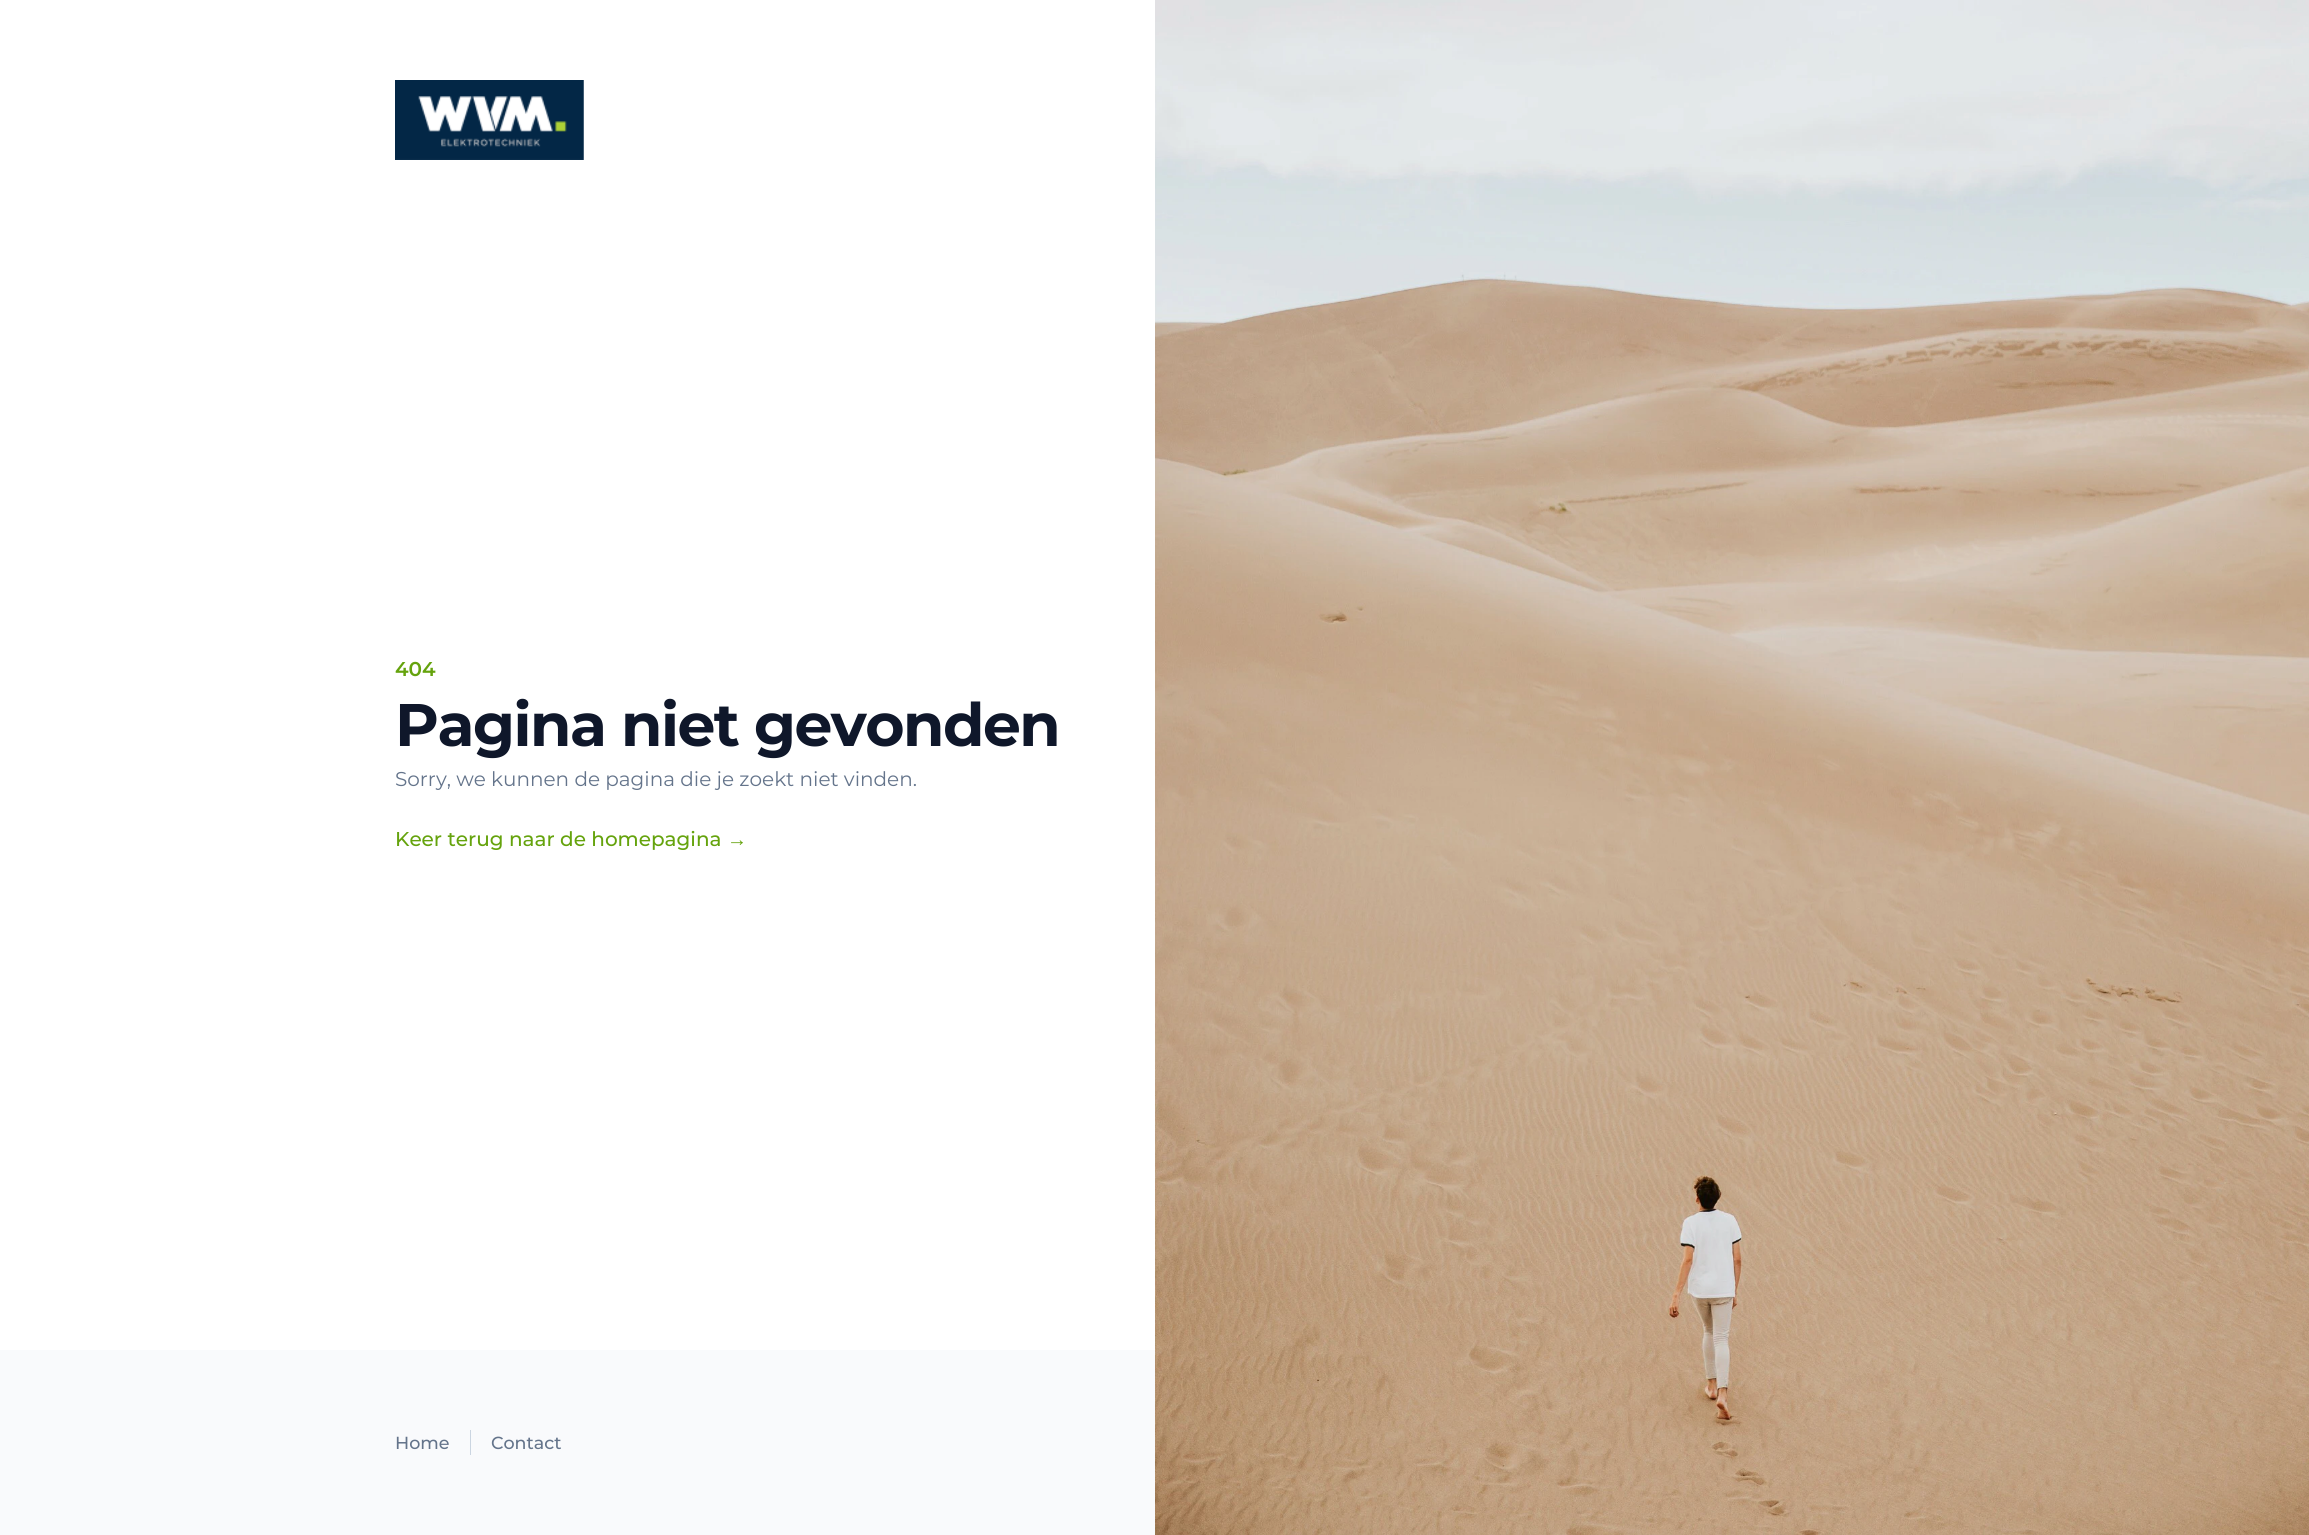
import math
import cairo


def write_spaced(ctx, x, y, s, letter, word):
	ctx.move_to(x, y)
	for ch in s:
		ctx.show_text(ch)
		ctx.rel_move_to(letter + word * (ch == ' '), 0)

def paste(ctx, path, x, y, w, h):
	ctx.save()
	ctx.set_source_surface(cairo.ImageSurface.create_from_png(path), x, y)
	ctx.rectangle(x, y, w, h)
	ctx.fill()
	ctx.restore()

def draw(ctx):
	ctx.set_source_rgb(1, 1, 1)
	ctx.paint()
	paste(ctx, 'media/1.png', 395, 80, 189, 80)
	ctx.select_font_face('Montserrat SemiBold')
	ctx.set_font_size(20)
	ctx.set_source_rgb(0.396, 0.639, 0.051)
	ctx.move_to(395, 676)
	ctx.show_text('404')
	ctx.select_font_face('Montserrat', cairo.FONT_SLANT_NORMAL, cairo.FONT_WEIGHT_BOLD)
	ctx.set_font_size(60)
	ctx.set_source_rgb(0.059, 0.09, 0.165)
	write_spaced(ctx, 395, 746, 'Pagina niet gevonden', -1.5, 0)
	ctx.select_font_face('Montserrat')
	ctx.set_font_size(20)
	ctx.set_source_rgb(0.392, 0.455, 0.545)
	ctx.move_to(395, 786)
	ctx.show_text('Sorry, we kunnen de pagina die je zoekt niet vinden.')
	ctx.select_font_face('Montserrat Medium')
	ctx.set_source_rgb(0.396, 0.639, 0.051)
	ctx.move_to(395, 846)
	ctx.show_text('Keer terug naar de homepagina')
	ctx.select_font_face('Liberation Sans')
	ctx.move_to(727, 846)
	ctx.show_text('→')
	ctx.set_source_rgb(0.973, 0.98, 0.988)
	ctx.rectangle(0, 1350, 1155, 185)
	ctx.fill()
	ctx.select_font_face('Montserrat Medium')
	ctx.set_font_size(17.5)
	ctx.set_source_rgb(0.392, 0.455, 0.545)
	ctx.move_to(395, 1449)
	ctx.show_text('Home')
	ctx.set_source_rgb(0.796, 0.835, 0.882)
	ctx.rectangle(470, 1430, 1, 25)
	ctx.fill()
	ctx.set_source_rgb(0.392, 0.455, 0.545)
	ctx.move_to(491, 1449)
	ctx.show_text('Contact')
	paste(ctx, 'media/2.png', 1155, 0, 1154, 1535)


surface = cairo.ImageSurface(cairo.FORMAT_RGB24, 2309, 1535)
ctx = cairo.Context(surface)
options = cairo.FontOptions()
options.set_hint_metrics(cairo.HINT_METRICS_OFF)
options.set_hint_style(cairo.HINT_STYLE_NONE)
ctx.set_font_options(options)
ctx.set_miter_limit(4)
draw(ctx)
surface.write_to_png('image.png')
